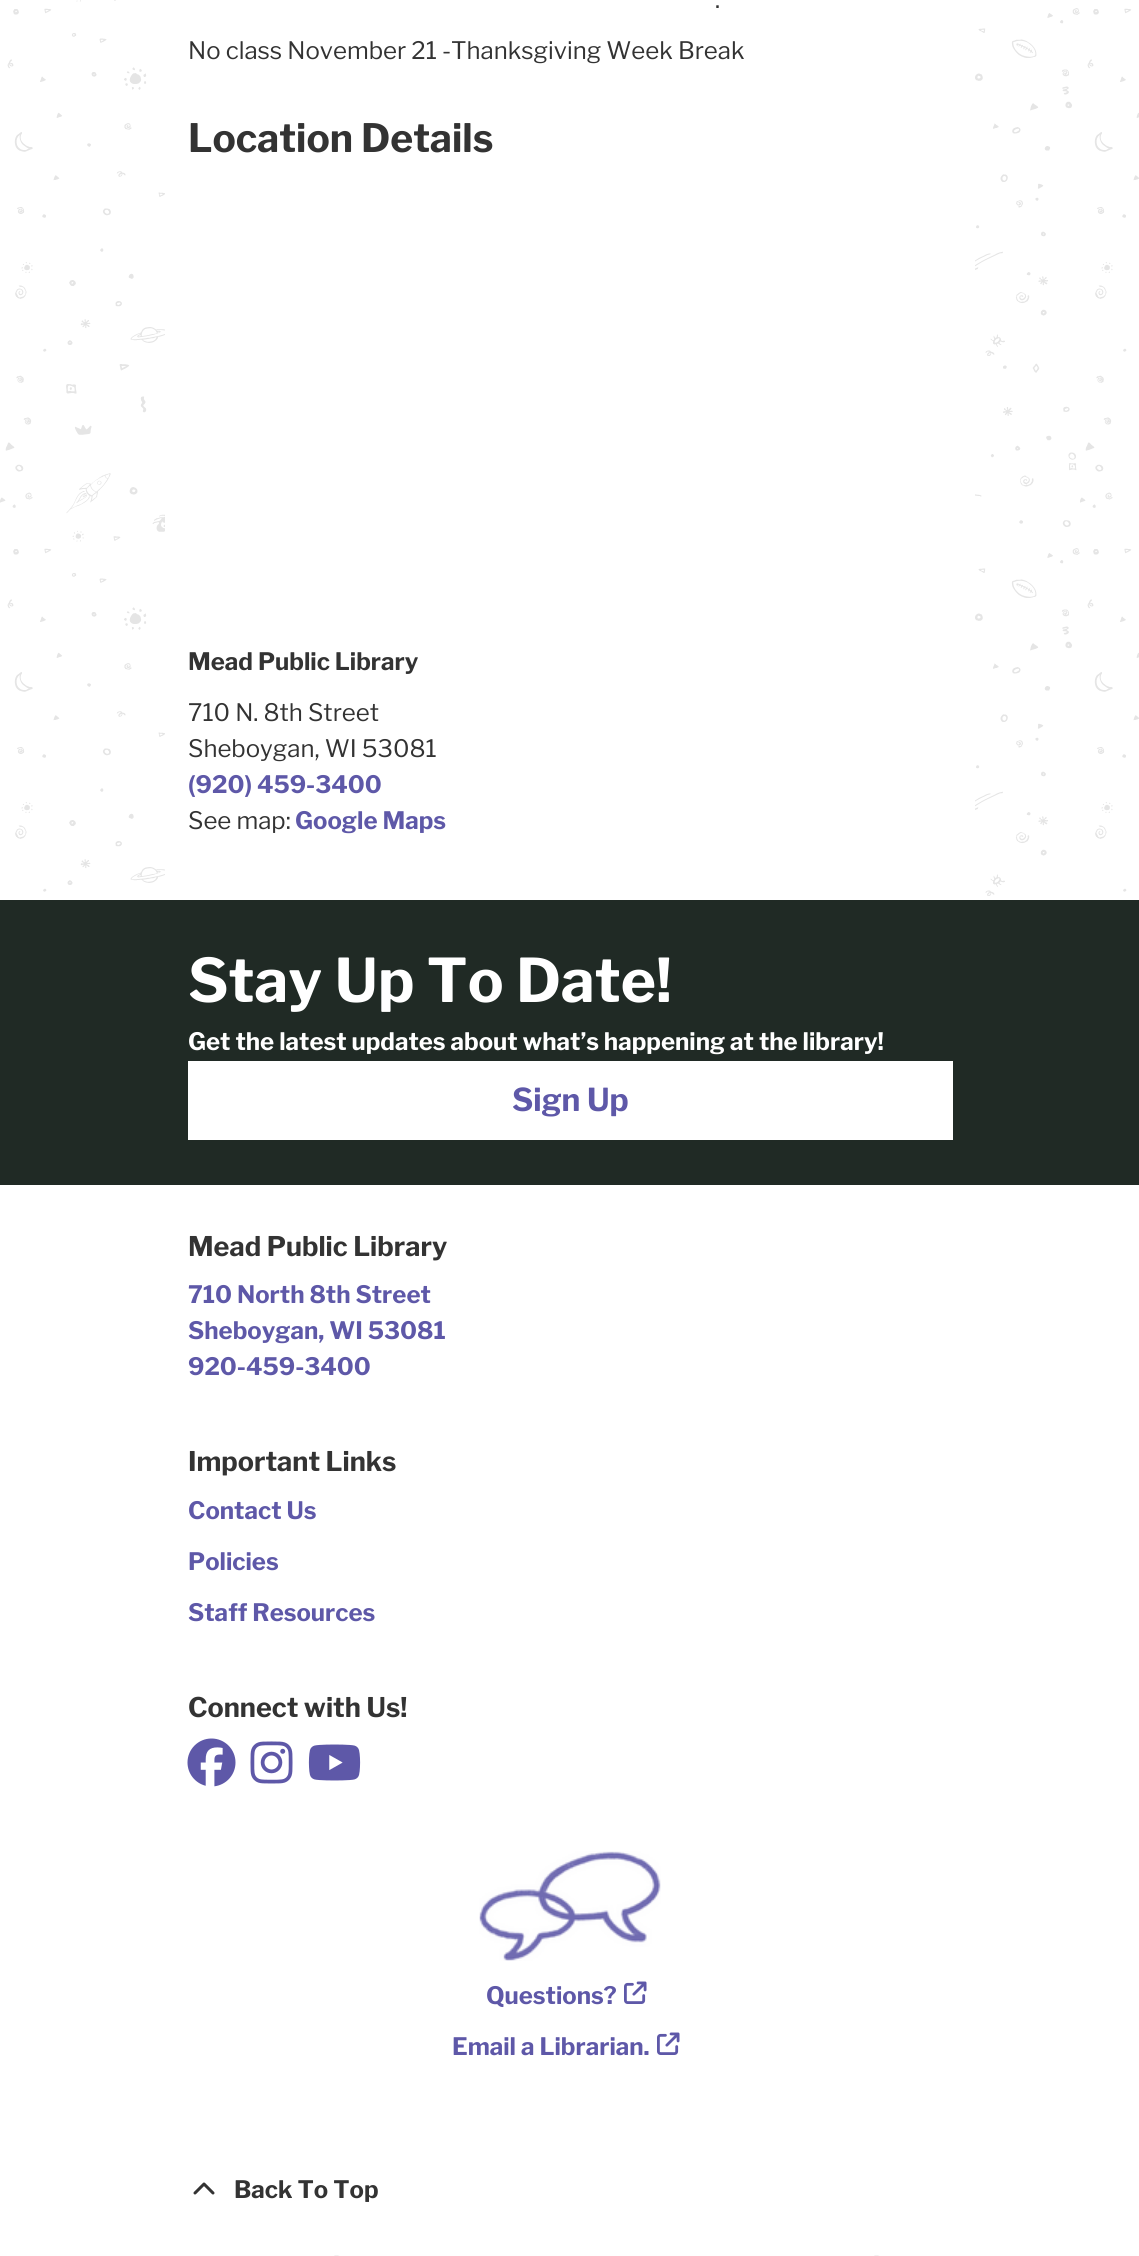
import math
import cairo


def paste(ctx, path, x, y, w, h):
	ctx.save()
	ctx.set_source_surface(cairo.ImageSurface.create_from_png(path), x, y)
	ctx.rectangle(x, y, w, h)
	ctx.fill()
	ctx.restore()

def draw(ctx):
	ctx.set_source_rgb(1, 1, 1)
	ctx.paint()
	paste(ctx, 'media/1.png', 0, 0, 1139, 2256)
	ctx.set_source_rgb(1, 1, 1)
	ctx.rectangle(165, 0, 810, 896)
	ctx.fill()
	ctx.select_font_face('Libre Franklin')
	ctx.set_font_size(24)
	ctx.set_source_rgb(0.2, 0.2, 0.2)
	ctx.move_to(715, 8)
	ctx.show_text('.')
	ctx.move_to(188, 59)
	ctx.show_text('No class November 21 -Thanksgiving Week Break')
	ctx.select_font_face('Libre Franklin', cairo.FONT_SLANT_NORMAL, cairo.FONT_WEIGHT_BOLD)
	ctx.set_font_size(39)
	ctx.move_to(188, 152)
	ctx.show_text('Location Details')
	ctx.set_font_size(24)
	ctx.move_to(188, 670)
	ctx.show_text('Mead Public Library')
	ctx.select_font_face('Libre Franklin')
	ctx.move_to(188, 721)
	ctx.show_text('710 N. 8th Street')
	ctx.move_to(188, 757)
	ctx.show_text('Sheboygan, WI 53081')
	ctx.select_font_face('Libre Franklin', cairo.FONT_SLANT_NORMAL, cairo.FONT_WEIGHT_BOLD)
	ctx.set_source_rgb(0.369, 0.345, 0.659)
	ctx.move_to(188, 793)
	ctx.show_text('(920) 459-3400')
	ctx.select_font_face('Libre Franklin')
	ctx.set_source_rgb(0.2, 0.2, 0.2)
	ctx.move_to(188, 829)
	ctx.show_text('See map:')
	ctx.select_font_face('Libre Franklin', cairo.FONT_SLANT_NORMAL, cairo.FONT_WEIGHT_BOLD)
	ctx.set_source_rgb(0.369, 0.345, 0.659)
	ctx.move_to(295, 829)
	ctx.show_text('Google Maps')
	ctx.set_source_rgb(0.125, 0.165, 0.145)
	ctx.rectangle(0, 900, 1139, 285)
	ctx.fill()
	ctx.set_font_size(60)
	ctx.set_source_rgb(1, 1, 1)
	ctx.move_to(188, 1002)
	ctx.show_text('Stay Up To Date!')
	ctx.set_font_size(24)
	ctx.move_to(188, 1050)
	ctx.show_text('Get the latest updates about what’s happening at the library!')
	ctx.rectangle(188, 1061, 765, 79)
	ctx.fill()
	ctx.set_font_size(31.5)
	ctx.set_source_rgb(0.369, 0.345, 0.659)
	ctx.move_to(512, 1111)
	ctx.show_text('Sign Up')
	ctx.set_source_rgb(1, 1, 1)
	ctx.rectangle(0, 1185, 1139, 1070)
	ctx.fill()
	ctx.set_font_size(27)
	ctx.set_source_rgb(0.2, 0.2, 0.2)
	ctx.move_to(188, 1256)
	ctx.show_text('Mead Public Library')
	ctx.set_font_size(24)
	ctx.set_source_rgb(0.369, 0.345, 0.659)
	for x, y, s in [
		(188, 1303, '710 North 8th Street'),
		(188, 1339, 'Sheboygan, WI 53081'),
		(188, 1375, '920-459-3400'),
	]:
		ctx.move_to(x, y)
		ctx.show_text(s)
	ctx.set_font_size(27)
	ctx.set_source_rgb(0.2, 0.2, 0.2)
	ctx.move_to(188, 1471)
	ctx.show_text('Important Links')
	ctx.set_font_size(24)
	ctx.set_source_rgb(0.369, 0.345, 0.659)
	for x, y, s in [
		(188, 1519, 'Contact Us'),
		(188, 1570, 'Policies'),
		(188, 1621, 'Staff Resources'),
	]:
		ctx.move_to(x, y)
		ctx.show_text(s)
	ctx.set_font_size(27)
	ctx.set_source_rgb(0.2, 0.2, 0.2)
	ctx.move_to(188, 1717)
	ctx.show_text('Connect with Us!')
	paste(ctx, 'media/2.png', 187, 1738, 49, 49)
	paste(ctx, 'media/3.png', 250, 1741, 43, 43)
	paste(ctx, 'media/4.png', 308, 1744, 53, 37)
	paste(ctx, 'media/5.png', 479, 1851, 182, 110)
	ctx.set_font_size(24)
	ctx.set_source_rgb(0.369, 0.345, 0.659)
	ctx.move_to(486, 2004)
	ctx.show_text('Questions?')
	paste(ctx, 'media/6.png', 624, 1981, 23, 23)
	ctx.move_to(452, 2055)
	ctx.show_text('Email a Librarian.')
	paste(ctx, 'media/6.png', 657, 2032, 23, 23)
	paste(ctx, 'media/7.png', 193, 2182, 22, 13)
	ctx.set_source_rgb(0.2, 0.2, 0.2)
	ctx.move_to(234, 2198)
	ctx.show_text('Back To Top')


surface = cairo.ImageSurface(cairo.FORMAT_RGB24, 1139, 2256)
ctx = cairo.Context(surface)
options = cairo.FontOptions()
options.set_hint_metrics(cairo.HINT_METRICS_OFF)
options.set_hint_style(cairo.HINT_STYLE_NONE)
ctx.set_font_options(options)
ctx.set_miter_limit(4)
draw(ctx)
surface.write_to_png('image.png')
